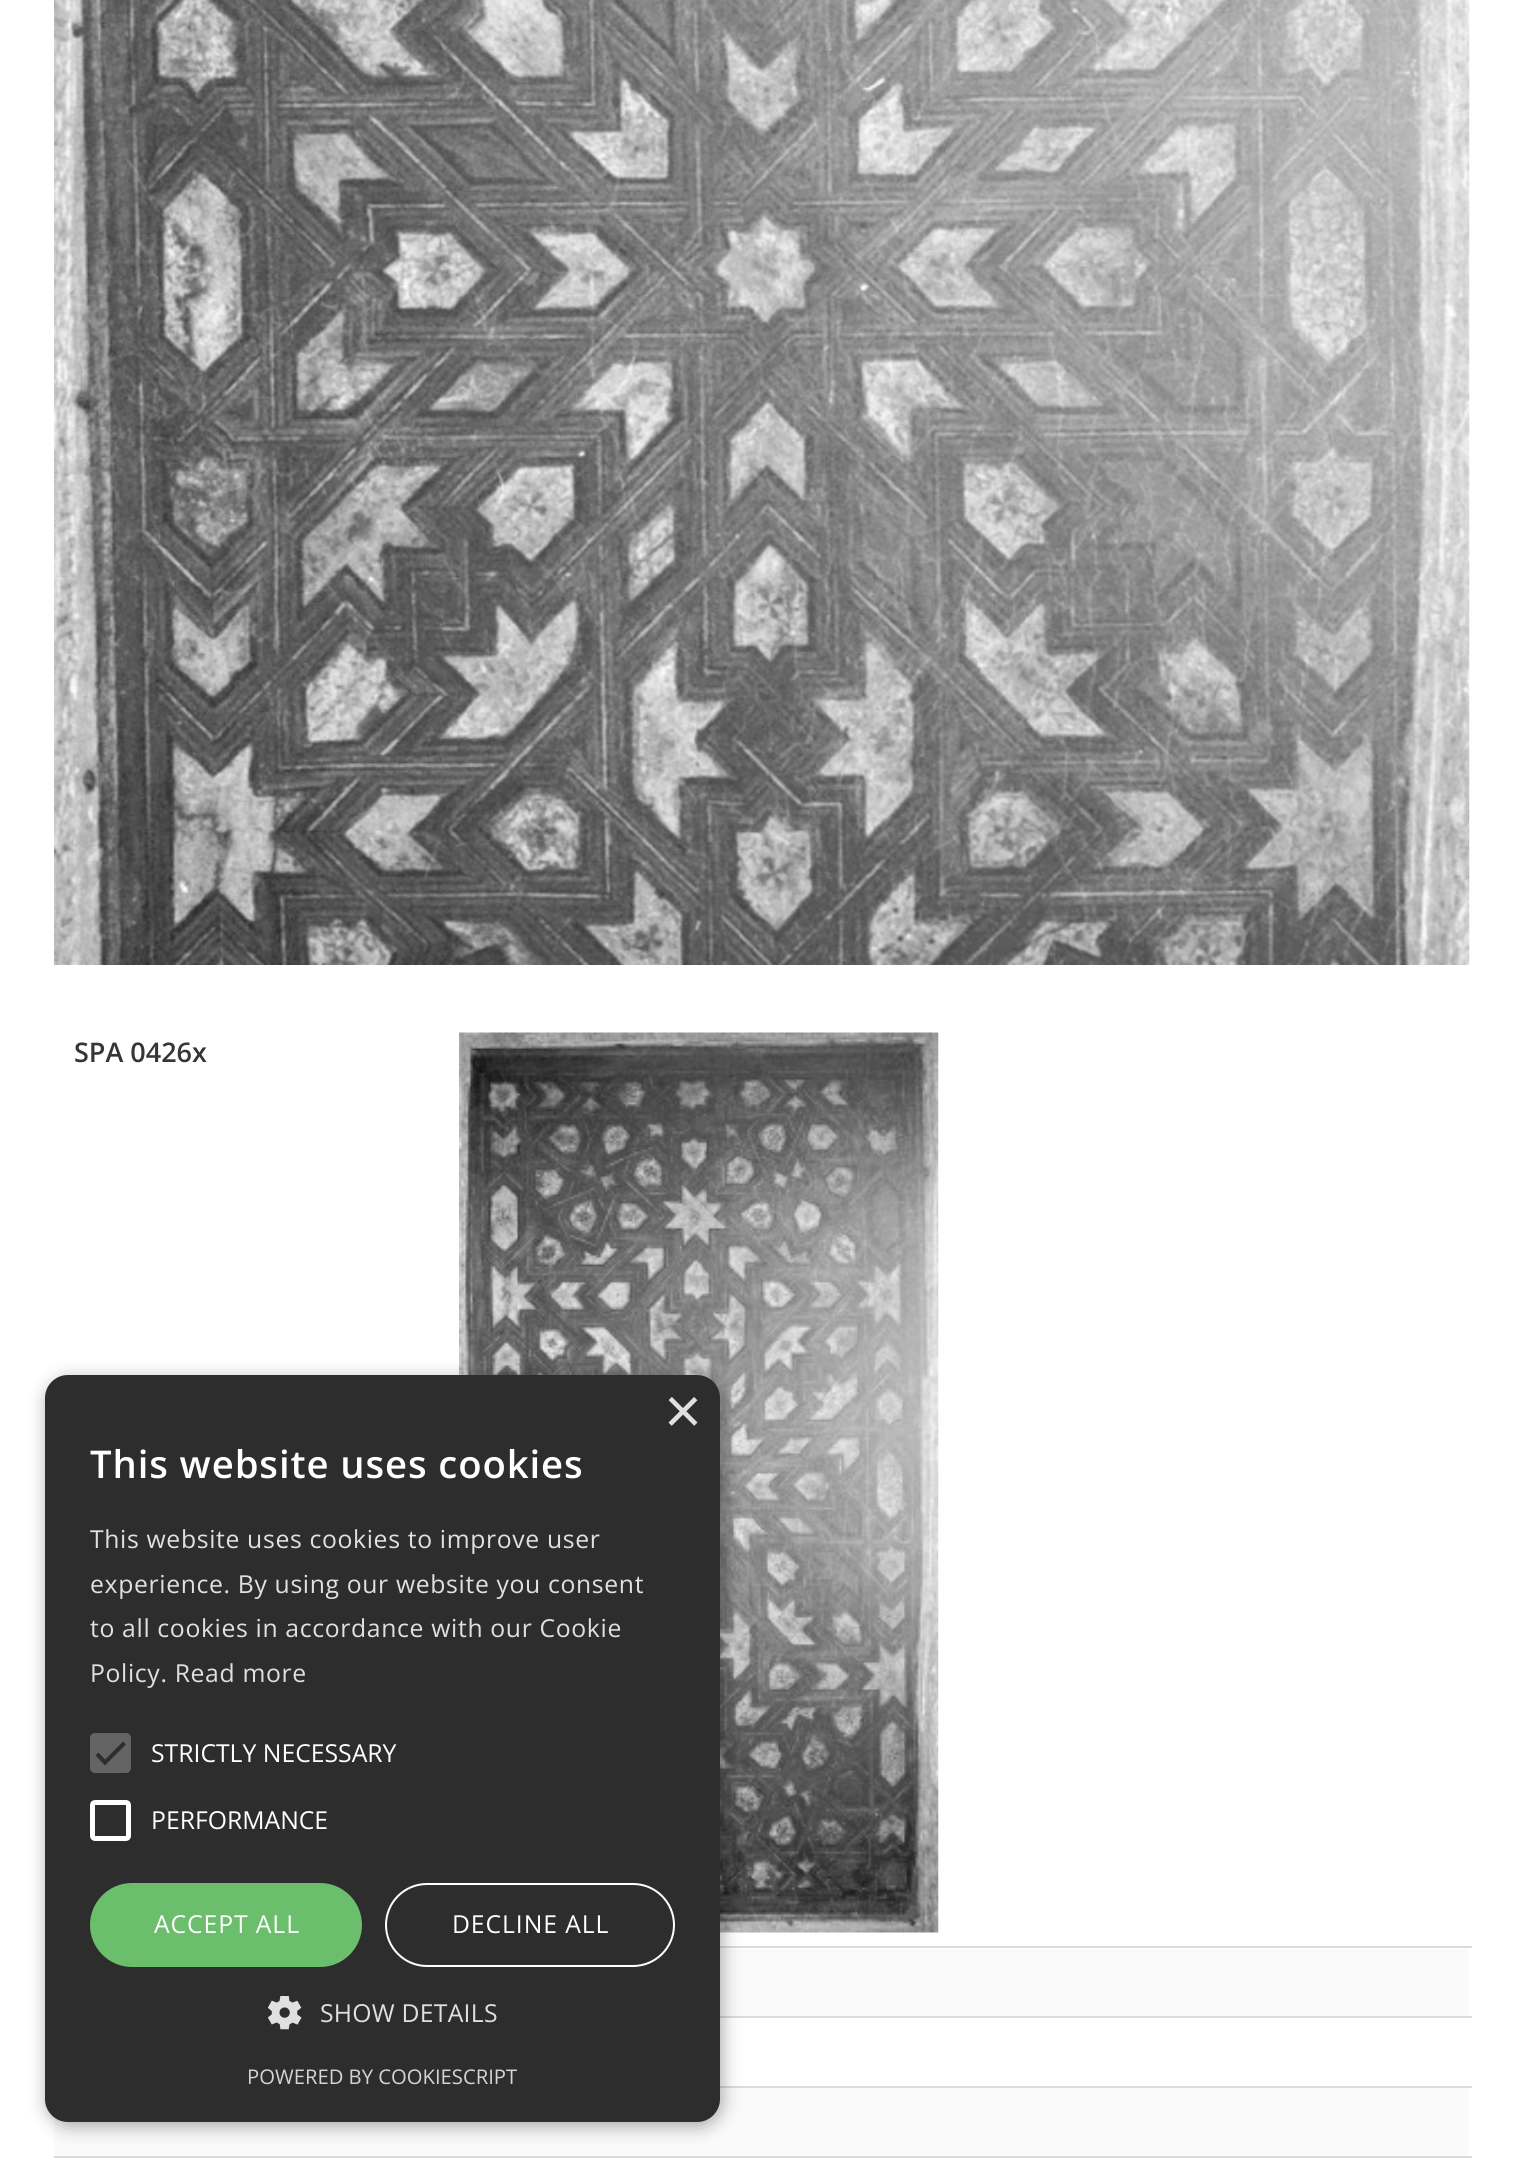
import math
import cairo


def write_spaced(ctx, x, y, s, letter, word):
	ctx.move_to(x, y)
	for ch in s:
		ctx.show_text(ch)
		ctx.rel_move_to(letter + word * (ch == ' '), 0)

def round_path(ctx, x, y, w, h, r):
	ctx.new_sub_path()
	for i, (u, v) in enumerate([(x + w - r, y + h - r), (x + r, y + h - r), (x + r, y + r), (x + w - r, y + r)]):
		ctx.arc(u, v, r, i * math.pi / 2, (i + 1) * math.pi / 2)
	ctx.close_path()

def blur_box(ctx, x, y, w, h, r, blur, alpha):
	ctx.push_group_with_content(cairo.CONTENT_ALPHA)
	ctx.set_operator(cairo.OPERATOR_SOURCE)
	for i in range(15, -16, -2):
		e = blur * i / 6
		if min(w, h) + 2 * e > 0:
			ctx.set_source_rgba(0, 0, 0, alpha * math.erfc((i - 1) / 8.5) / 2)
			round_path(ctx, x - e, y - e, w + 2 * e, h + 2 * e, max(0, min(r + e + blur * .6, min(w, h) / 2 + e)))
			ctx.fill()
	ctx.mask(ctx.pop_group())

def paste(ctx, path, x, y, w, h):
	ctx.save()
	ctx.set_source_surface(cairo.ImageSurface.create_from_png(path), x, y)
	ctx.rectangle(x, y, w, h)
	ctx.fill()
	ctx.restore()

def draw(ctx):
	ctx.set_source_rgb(1, 1, 1)
	ctx.paint()
	paste(ctx, 'media/1.png', 54, 0, 1416, 965)
	ctx.select_font_face('Open Sans SemiBold')
	ctx.set_font_size(27)
	ctx.set_source_rgb(0.212, 0.212, 0.212)
	ctx.move_to(74, 1062)
	ctx.show_text('SPA 0426x')
	ctx.set_source_rgb(0.859, 0.859, 0.859)
	ctx.rectangle(720, 1946, 752, 2)
	ctx.fill()
	paste(ctx, 'media/2.png', 459, 1032, 480, 901)
	ctx.set_source_rgb(0.98, 0.98, 0.98)
	ctx.rectangle(720, 1949, 749, 67)
	ctx.fill()
	ctx.set_source_rgb(0.859, 0.859, 0.859)
	ctx.rectangle(720, 2016, 752, 2)
	ctx.rectangle(720, 2086, 752, 2)
	ctx.fill()
	ctx.set_source_rgb(0.98, 0.98, 0.98)
	ctx.rectangle(54, 2088, 1415, 68)
	ctx.fill()
	ctx.set_source_rgb(0.859, 0.859, 0.859)
	ctx.rectangle(54, 2156, 1418, 2)
	ctx.fill()
	ctx.set_source_rgb(0, 0, 0)
	blur_box(ctx, 47, 1379, 675, 747, 23, 9, 0.35)
	ctx.set_source_rgb(0.176, 0.176, 0.176)
	round_path(ctx, 45, 1375, 675, 747, 23)
	ctx.fill()
	ctx.select_font_face('Liberation Sans')
	ctx.set_font_size(65)
	ctx.set_source_rgb(0.878, 0.878, 0.878)
	ctx.move_to(664, 1433)
	ctx.show_text('×')
	ctx.select_font_face('Open Sans SemiBold')
	ctx.set_font_size(38.25)
	ctx.set_source_rgb(1, 1, 1)
	write_spaced(ctx, 90, 1478, 'This website uses cookies', 0.9, 0)
	ctx.select_font_face('Open Sans')
	ctx.set_font_size(24.75)
	ctx.set_source_rgb(0.878, 0.878, 0.878)
	for x, y, s in [
		(90, 1548, 'This website uses cookies to improve user'),
		(90, 1593, 'experience. By using our website you consent'),
		(90, 1637, 'to all cookies in accordance with our Cookie'),
		(90, 1682, 'Policy. Read more'),
	]:
		write_spaced(ctx, x, y, s, 0.65, 0)
	ctx.set_source_rgb(0.392, 0.392, 0.392)
	round_path(ctx, 90, 1733, 41, 40, 5)
	ctx.fill()
	ctx.new_path()
	ctx.move_to(97, 1754)
	ctx.line_to(105, 1762.5)
	ctx.line_to(124.5, 1743)
	ctx.set_source_rgb(0.176, 0.176, 0.176)
	ctx.set_line_width(4.1)
	ctx.stroke()
	ctx.set_source_rgb(1, 1, 1)
	ctx.move_to(151, 1762)
	ctx.show_text('STRICTLY NECESSARY')
	round_path(ctx, 92.5, 1802.5, 36, 36, 2.5)
	ctx.set_line_width(5)
	ctx.stroke()
	ctx.move_to(151, 1829)
	ctx.show_text('PERFORMANCE')
	ctx.set_source_rgb(0.42, 0.745, 0.42)
	round_path(ctx, 90, 1883, 272, 84, 42)
	ctx.fill()
	ctx.set_source_rgb(1, 1, 1)
	write_spaced(ctx, 154, 1933, 'ACCEPT ALL', 0.9, 0)
	round_path(ctx, 386, 1884, 288, 82, 41)
	ctx.set_line_width(2)
	ctx.stroke()
	write_spaced(ctx, 452, 1933, 'DECLINE ALL', 0.9, 0)
	paste(ctx, 'media/3.png', 268, 1996, 34, 34)
	ctx.set_source_rgb(0.878, 0.878, 0.878)
	write_spaced(ctx, 320, 2022, 'SHOW DETAILS', 0.25, 0)
	ctx.set_font_size(20.25)
	ctx.set_source_rgb(0.835, 0.835, 0.835)
	ctx.move_to(247, 2084)
	ctx.show_text('POWERED BY COOKIESCRIPT')


surface = cairo.ImageSurface(cairo.FORMAT_RGB24, 1522, 2166)
ctx = cairo.Context(surface)
options = cairo.FontOptions()
options.set_hint_metrics(cairo.HINT_METRICS_OFF)
options.set_hint_style(cairo.HINT_STYLE_NONE)
ctx.set_font_options(options)
ctx.set_miter_limit(4)
draw(ctx)
surface.write_to_png('image.png')
